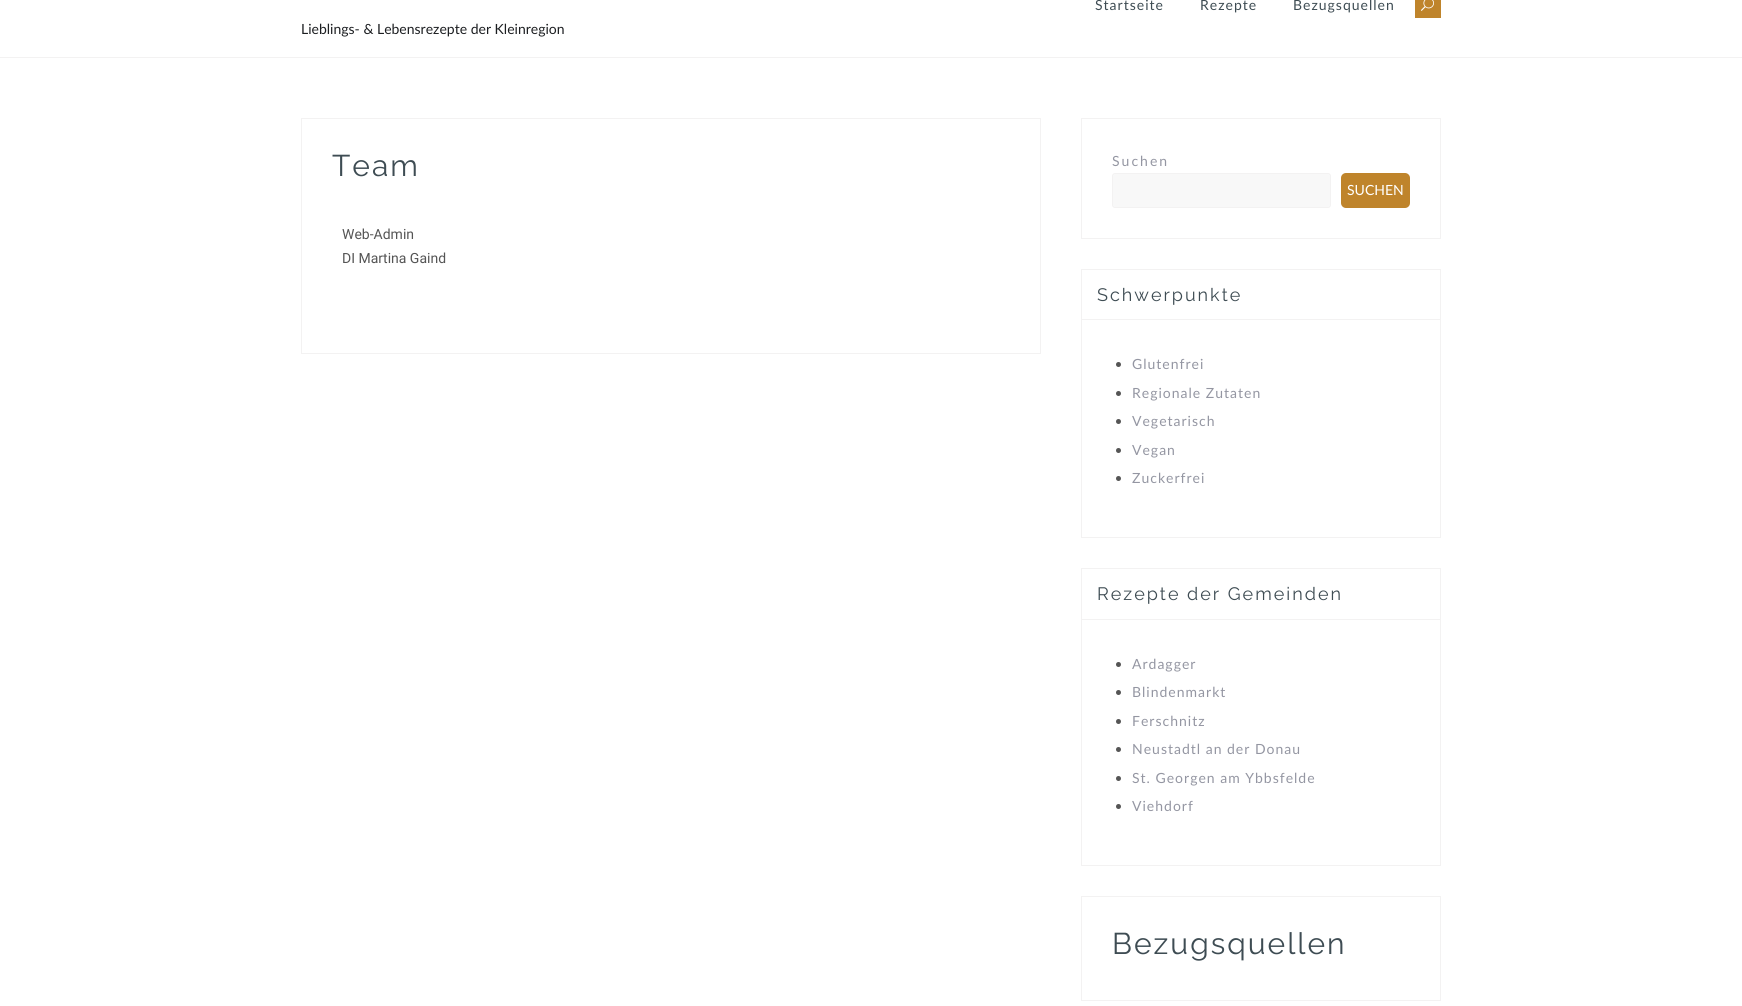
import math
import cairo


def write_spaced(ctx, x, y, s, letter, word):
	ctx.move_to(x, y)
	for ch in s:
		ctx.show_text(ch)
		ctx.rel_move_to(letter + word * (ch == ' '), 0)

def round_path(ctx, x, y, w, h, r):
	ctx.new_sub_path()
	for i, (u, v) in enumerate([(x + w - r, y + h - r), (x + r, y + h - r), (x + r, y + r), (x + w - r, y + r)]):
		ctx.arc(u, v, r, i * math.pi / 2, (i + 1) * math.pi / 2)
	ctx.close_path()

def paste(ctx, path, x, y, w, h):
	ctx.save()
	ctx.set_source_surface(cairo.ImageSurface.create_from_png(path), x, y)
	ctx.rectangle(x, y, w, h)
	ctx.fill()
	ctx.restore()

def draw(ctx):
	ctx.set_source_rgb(1, 1, 1)
	ctx.paint()
	ctx.set_source_rgb(0.953, 0.949, 0.949)
	ctx.rectangle(0, 57, 1742, 1)
	ctx.fill()
	ctx.select_font_face('Lato')
	ctx.set_font_size(14)
	ctx.set_source_rgb(0.243, 0.298, 0.325)
	for x, y, s in [
		(1095, 10, 'Startseite'),
		(1200, 10, 'Rezepte'),
		(1293, 10, 'Bezugsquellen'),
	]:
		write_spaced(ctx, x, y, s, 1, 0)
	ctx.set_source_rgb(0.749, 0.518, 0.169)
	ctx.rectangle(1415, 0, 26, 18)
	ctx.fill()
	paste(ctx, 'media/1.png', 1421, 0, 13, 11)
	ctx.set_source_rgb(0.11, 0.118, 0.129)
	ctx.move_to(301, 34)
	ctx.show_text('Lieblings- & Lebensrezepte der Kleinregion')
	ctx.rectangle(301.5, 118.5, 739, 235)
	ctx.set_source_rgb(0.953, 0.949, 0.949)
	ctx.set_line_width(1)
	ctx.stroke()
	ctx.select_font_face('Raleway')
	ctx.set_font_size(30)
	ctx.set_source_rgb(0.243, 0.298, 0.325)
	write_spaced(ctx, 332, 176, 'Team', 2, 0)
	ctx.select_font_face('Roboto')
	ctx.set_font_size(14)
	ctx.set_source_rgb(0.333, 0.333, 0.333)
	ctx.move_to(342, 239)
	ctx.show_text('Web-Admin')
	ctx.move_to(342, 263)
	ctx.show_text('DI Martina Gaind')
	ctx.rectangle(1081.5, 118.5, 359, 120)
	ctx.set_source_rgb(0.953, 0.949, 0.949)
	ctx.stroke()
	ctx.select_font_face('Lato')
	ctx.set_source_rgb(0.58, 0.588, 0.635)
	write_spaced(ctx, 1112, 166, 'Suchen', 2, 0)
	ctx.set_source_rgb(0.969, 0.969, 0.969)
	round_path(ctx, 1112.5, 173.5, 218, 34, 2.5)
	ctx.fill_preserve()
	ctx.set_source_rgb(0.953, 0.949, 0.949)
	ctx.stroke()
	ctx.set_source_rgb(0.749, 0.518, 0.169)
	round_path(ctx, 1341, 173, 69, 35, 5)
	ctx.fill()
	ctx.set_source_rgb(1, 1, 1)
	ctx.move_to(1347, 195)
	ctx.show_text('SUCHEN')
	ctx.rectangle(1081.5, 269.5, 359, 268)
	ctx.set_source_rgb(0.953, 0.949, 0.949)
	ctx.stroke()
	ctx.rectangle(1082, 319, 358, 1)
	ctx.fill()
	ctx.select_font_face('Raleway')
	ctx.set_font_size(18)
	ctx.set_source_rgb(0.243, 0.298, 0.325)
	write_spaced(ctx, 1097, 301, 'Schwerpunkte', 2, 0)
	ctx.set_source_rgb(0.333, 0.333, 0.333)
	ctx.new_path()
	ctx.arc(1118.5, 364.5, 2.5, 0, 2 * math.pi)
	ctx.fill()
	ctx.select_font_face('Lato')
	ctx.set_font_size(14)
	ctx.set_source_rgb(0.58, 0.588, 0.635)
	write_spaced(ctx, 1132, 369, 'Glutenfrei', 1, 0)
	ctx.set_source_rgb(0.333, 0.333, 0.333)
	ctx.new_path()
	ctx.arc(1118.5, 393.5, 2.5, 0, 2 * math.pi)
	ctx.fill()
	ctx.set_source_rgb(0.58, 0.588, 0.635)
	write_spaced(ctx, 1132, 398, 'Regionale Zutaten', 1, 0)
	ctx.set_source_rgb(0.333, 0.333, 0.333)
	ctx.new_path()
	ctx.arc(1118.5, 421.5, 2.5, 0, 2 * math.pi)
	ctx.fill()
	ctx.set_source_rgb(0.58, 0.588, 0.635)
	write_spaced(ctx, 1132, 426, 'Vegetarisch', 1, 0)
	ctx.set_source_rgb(0.333, 0.333, 0.333)
	ctx.new_path()
	ctx.arc(1118.5, 450.5, 2.5, 0, 2 * math.pi)
	ctx.fill()
	ctx.set_source_rgb(0.58, 0.588, 0.635)
	write_spaced(ctx, 1132, 455, 'Vegan', 1, 0)
	ctx.set_source_rgb(0.333, 0.333, 0.333)
	ctx.new_path()
	ctx.arc(1118.5, 478.5, 2.5, 0, 2 * math.pi)
	ctx.fill()
	ctx.set_source_rgb(0.58, 0.588, 0.635)
	write_spaced(ctx, 1132, 483, 'Zuckerfrei', 1, 0)
	ctx.rectangle(1081.5, 568.5, 359, 297)
	ctx.set_source_rgb(0.953, 0.949, 0.949)
	ctx.stroke()
	ctx.rectangle(1082, 619, 358, 1)
	ctx.fill()
	ctx.select_font_face('Raleway')
	ctx.set_font_size(18)
	ctx.set_source_rgb(0.243, 0.298, 0.325)
	write_spaced(ctx, 1097, 600, 'Rezepte der Gemeinden', 2, 0)
	ctx.set_source_rgb(0.333, 0.333, 0.333)
	ctx.new_path()
	ctx.arc(1118.5, 664.5, 2.5, 0, 2 * math.pi)
	ctx.fill()
	ctx.select_font_face('Lato')
	ctx.set_font_size(14)
	ctx.set_source_rgb(0.58, 0.588, 0.635)
	write_spaced(ctx, 1132, 669, 'Ardagger', 1, 0)
	ctx.set_source_rgb(0.333, 0.333, 0.333)
	ctx.new_path()
	ctx.arc(1118.5, 692.5, 2.5, 0, 2 * math.pi)
	ctx.fill()
	ctx.set_source_rgb(0.58, 0.588, 0.635)
	write_spaced(ctx, 1132, 697, 'Blindenmarkt', 1, 0)
	ctx.set_source_rgb(0.333, 0.333, 0.333)
	ctx.new_path()
	ctx.arc(1118.5, 721.5, 2.5, 0, 2 * math.pi)
	ctx.fill()
	ctx.set_source_rgb(0.58, 0.588, 0.635)
	write_spaced(ctx, 1132, 726, 'Ferschnitz', 1, 0)
	ctx.set_source_rgb(0.333, 0.333, 0.333)
	ctx.new_path()
	ctx.arc(1118.5, 749.5, 2.5, 0, 2 * math.pi)
	ctx.fill()
	ctx.set_source_rgb(0.58, 0.588, 0.635)
	write_spaced(ctx, 1132, 754, 'Neustadtl an der Donau', 1, 0)
	ctx.set_source_rgb(0.333, 0.333, 0.333)
	ctx.new_path()
	ctx.arc(1118.5, 778.5, 2.5, 0, 2 * math.pi)
	ctx.fill()
	ctx.set_source_rgb(0.58, 0.588, 0.635)
	write_spaced(ctx, 1132, 783, 'St. Georgen am Ybbsfelde', 1, 0)
	ctx.set_source_rgb(0.333, 0.333, 0.333)
	ctx.new_path()
	ctx.arc(1118.5, 806.5, 2.5, 0, 2 * math.pi)
	ctx.fill()
	ctx.set_source_rgb(0.58, 0.588, 0.635)
	write_spaced(ctx, 1132, 811, 'Viehdorf', 1, 0)
	ctx.rectangle(1081.5, 896.5, 359, 104)
	ctx.set_source_rgb(0.953, 0.949, 0.949)
	ctx.stroke()
	ctx.select_font_face('Raleway')
	ctx.set_font_size(30)
	ctx.set_source_rgb(0.243, 0.298, 0.325)
	write_spaced(ctx, 1112, 954, 'Bezugsquellen', 2, 0)


surface = cairo.ImageSurface(cairo.FORMAT_RGB24, 1742, 1006)
ctx = cairo.Context(surface)
options = cairo.FontOptions()
options.set_hint_metrics(cairo.HINT_METRICS_OFF)
options.set_hint_style(cairo.HINT_STYLE_NONE)
ctx.set_font_options(options)
ctx.set_miter_limit(4)
draw(ctx)
surface.write_to_png('image.png')
